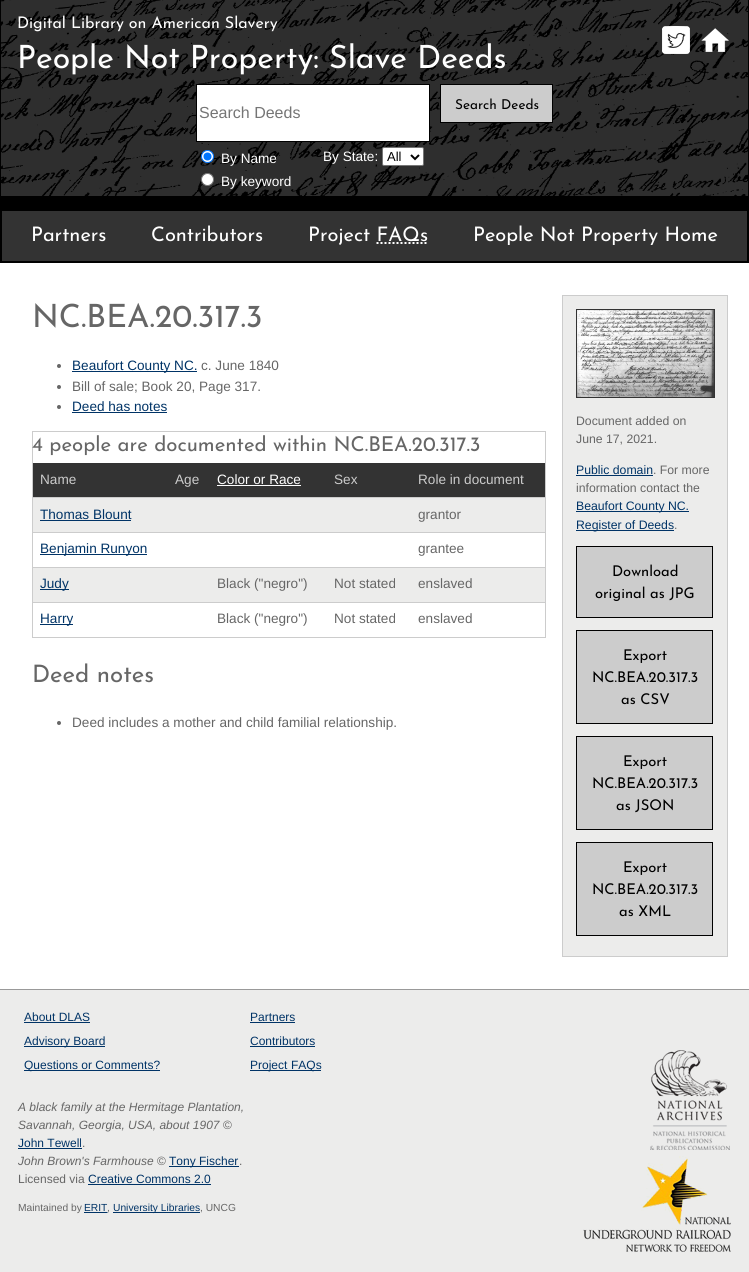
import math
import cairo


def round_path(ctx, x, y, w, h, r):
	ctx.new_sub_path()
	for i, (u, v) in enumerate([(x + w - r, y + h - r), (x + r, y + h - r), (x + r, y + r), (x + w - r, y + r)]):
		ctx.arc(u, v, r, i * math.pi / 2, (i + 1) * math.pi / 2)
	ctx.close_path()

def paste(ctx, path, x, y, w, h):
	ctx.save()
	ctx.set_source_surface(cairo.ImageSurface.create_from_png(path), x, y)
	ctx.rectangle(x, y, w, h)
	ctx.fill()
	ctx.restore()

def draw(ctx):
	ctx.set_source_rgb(0.925, 0.925, 0.918)
	ctx.paint()
	ctx.set_source_rgb(0, 0, 0)
	ctx.rectangle(0, 0, 749, 263)
	ctx.fill()
	paste(ctx, 'media/1.png', 1, 0, 747, 196)
	ctx.select_font_face('Josefin Sans Thin')
	ctx.set_font_size(16)
	ctx.set_source_rgb(1, 1, 1)
	ctx.move_to(17, 28)
	ctx.show_text('Digital Library on American Slavery')
	ctx.set_font_size(32)
	ctx.move_to(17, 68)
	ctx.show_text('People Not Property: Slave Deeds')
	paste(ctx, 'media/2.png', 662, 26, 28, 28)
	paste(ctx, 'media/3.png', 701, 28, 28, 24)
	ctx.set_source_rgb(0.8, 0.8, 0.8)
	ctx.rectangle(440.5, 84.5, 112, 38)
	ctx.fill_preserve()
	ctx.set_source_rgb(0, 0, 0)
	ctx.set_line_width(1)
	ctx.stroke()
	ctx.set_font_size(13.6)
	ctx.move_to(455, 109)
	ctx.show_text('Search Deeds')
	ctx.set_source_rgb(1, 1, 1)
	ctx.rectangle(196.5, 84.5, 233, 57)
	ctx.fill_preserve()
	ctx.set_source_rgb(0, 0, 0)
	ctx.stroke()
	ctx.select_font_face('Liberation Sans')
	ctx.set_font_size(16)
	ctx.set_source_rgb(0.459, 0.459, 0.459)
	ctx.move_to(199, 118)
	ctx.show_text('Search Deeds')
	ctx.set_source_rgb(1, 1, 1)
	ctx.new_path()
	ctx.arc(207.5, 156.5, 6, 0, 2 * math.pi)
	ctx.fill_preserve()
	ctx.set_source_rgb(0, 0.459, 1)
	ctx.stroke()
	ctx.arc(207.5, 156.5, 4, 0, 2 * math.pi)
	ctx.fill()
	ctx.set_font_size(13.6)
	ctx.set_source_rgb(1, 1, 1)
	ctx.move_to(221, 163)
	ctx.show_text('By Name')
	ctx.new_path()
	ctx.arc(207.5, 179.5, 6, 0, 2 * math.pi)
	ctx.fill_preserve()
	ctx.set_source_rgb(0.463, 0.463, 0.463)
	ctx.stroke()
	ctx.set_source_rgb(1, 1, 1)
	ctx.move_to(221, 186)
	ctx.show_text('By keyword')
	ctx.move_to(323, 161)
	ctx.show_text('By State:')
	round_path(ctx, 382.5, 147.5, 41, 18, 1.5)
	ctx.fill_preserve()
	ctx.set_source_rgb(0.463, 0.463, 0.463)
	ctx.stroke()
	ctx.new_path()
	ctx.move_to(411, 155)
	ctx.line_to(415, 159)
	ctx.line_to(419, 155)
	ctx.set_source_rgb(0, 0, 0)
	ctx.set_line_width(2)
	ctx.stroke()
	ctx.set_font_size(13)
	ctx.move_to(387, 161)
	ctx.show_text('All')
	ctx.set_source_rgb(0.2, 0.2, 0.2)
	ctx.rectangle(2, 211, 745, 50)
	ctx.fill()
	ctx.select_font_face('Josefin Sans Thin')
	ctx.set_font_size(20)
	ctx.set_source_rgb(1, 1, 1)
	for x, y, s in [
		(31, 241, 'Partners'),
		(151, 241, 'Contributors'),
		(308, 241, 'Project FAQs'),
	]:
		ctx.move_to(x, y)
		ctx.show_text(s)
	ctx.new_path()
	ctx.move_to(376.5, 243)
	ctx.line_to(428, 243)
	ctx.set_dash([2, 2])
	ctx.stroke()
	ctx.move_to(473, 241)
	ctx.show_text('People Not Property Home')
	ctx.rectangle(0, 263, 749, 726)
	ctx.fill()
	ctx.set_font_size(32)
	ctx.set_source_rgb(0.4, 0.4, 0.4)
	ctx.move_to(32, 327)
	ctx.show_text('NC.BEA.20.317.3')
	ctx.new_path()
	ctx.arc(59, 366, 2, 0, 2 * math.pi)
	ctx.fill()
	ctx.set_source_rgb(0, 0.2, 0.4)
	ctx.rectangle(72, 371, 125, 1)
	ctx.fill()
	ctx.select_font_face('Liberation Sans')
	ctx.set_font_size(13.6)
	ctx.move_to(72, 370)
	ctx.show_text('Beaufort County NC.')
	ctx.set_source_rgb(0.4, 0.4, 0.4)
	ctx.move_to(201, 370)
	ctx.show_text('c. June 1840')
	ctx.new_path()
	ctx.arc(59, 387, 2, 0, 2 * math.pi)
	ctx.fill()
	ctx.move_to(72, 391)
	ctx.show_text('Bill of sale; Book 20, Page 317.')
	ctx.new_path()
	ctx.arc(59, 407, 2, 0, 2 * math.pi)
	ctx.fill()
	ctx.set_source_rgb(0, 0.2, 0.4)
	ctx.move_to(72, 411)
	ctx.show_text('Deed has notes')
	ctx.rectangle(72, 412, 95, 1)
	ctx.fill()
	ctx.set_source_rgb(0.8, 0.8, 0.8)
	ctx.rectangle(32, 431, 514, 1)
	ctx.rectangle(545, 431, 1, 207)
	ctx.rectangle(32, 431, 1, 207)
	ctx.fill()
	ctx.select_font_face('Josefin Sans Thin')
	ctx.set_font_size(20.4)
	ctx.set_source_rgb(0.4, 0.4, 0.4)
	ctx.move_to(32, 451)
	ctx.show_text('4 people are documented within NC.BEA.20.317.3')
	ctx.set_source_rgb(0.2, 0.2, 0.2)
	ctx.rectangle(33, 463, 512, 34)
	ctx.fill()
	ctx.set_source_rgb(0.8, 0.8, 0.8)
	ctx.rectangle(33, 497, 512, 1)
	ctx.fill()
	ctx.select_font_face('Liberation Sans')
	ctx.set_font_size(13.6)
	ctx.move_to(40, 484)
	ctx.show_text('Name')
	ctx.move_to(175, 484)
	ctx.show_text('Age')
	ctx.set_source_rgb(1, 1, 1)
	ctx.move_to(217, 484)
	ctx.show_text('Color or Race')
	ctx.rectangle(217, 485, 84, 1)
	ctx.fill()
	ctx.set_source_rgb(0.8, 0.8, 0.8)
	ctx.move_to(334, 484)
	ctx.show_text('Sex')
	ctx.move_to(418, 484)
	ctx.show_text('Role in document')
	ctx.set_source_rgb(0.925, 0.925, 0.918)
	ctx.rectangle(33, 498, 512, 34)
	ctx.fill()
	ctx.set_source_rgb(0.8, 0.8, 0.8)
	ctx.rectangle(33, 532, 512, 1)
	ctx.fill()
	ctx.set_source_rgb(0, 0.2, 0.4)
	ctx.move_to(40, 519)
	ctx.show_text('Thomas Blount')
	ctx.rectangle(40, 520, 91, 1)
	ctx.fill()
	ctx.set_source_rgb(0.4, 0.4, 0.4)
	ctx.move_to(418, 519)
	ctx.show_text('grantor')
	ctx.set_source_rgb(0.8, 0.8, 0.8)
	ctx.rectangle(33, 567, 512, 1)
	ctx.fill()
	ctx.set_source_rgb(0, 0.2, 0.4)
	ctx.rectangle(40, 554, 107, 1)
	ctx.fill()
	ctx.move_to(40, 553)
	ctx.show_text('Benjamin Runyon')
	ctx.set_source_rgb(0.4, 0.4, 0.4)
	ctx.move_to(418, 553)
	ctx.show_text('grantee')
	ctx.set_source_rgb(0.925, 0.925, 0.918)
	ctx.rectangle(33, 568, 512, 34)
	ctx.fill()
	ctx.set_source_rgb(0.8, 0.8, 0.8)
	ctx.rectangle(33, 602, 512, 1)
	ctx.fill()
	ctx.set_source_rgb(0, 0.2, 0.4)
	ctx.rectangle(40, 589, 29, 1)
	ctx.fill()
	ctx.move_to(40, 588)
	ctx.show_text('Judy')
	ctx.set_source_rgb(0.4, 0.4, 0.4)
	for x, y, s in [
		(217, 588, 'Black ("negro")'),
		(334, 588, 'Not stated'),
		(418, 588, 'enslaved'),
	]:
		ctx.move_to(x, y)
		ctx.show_text(s)
	ctx.set_source_rgb(0.8, 0.8, 0.8)
	ctx.rectangle(33, 637, 512, 1)
	ctx.fill()
	ctx.set_source_rgb(0, 0.2, 0.4)
	ctx.rectangle(40, 624, 33, 1)
	ctx.fill()
	ctx.move_to(40, 623)
	ctx.show_text('Harry')
	ctx.set_source_rgb(0.4, 0.4, 0.4)
	for x, y, s in [
		(217, 623, 'Black ("negro")'),
		(334, 623, 'Not stated'),
		(418, 623, 'enslaved'),
	]:
		ctx.move_to(x, y)
		ctx.show_text(s)
	ctx.select_font_face('Josefin Sans Thin')
	ctx.set_font_size(24)
	ctx.move_to(32, 682)
	ctx.show_text('Deed notes')
	ctx.new_path()
	ctx.arc(59, 723, 2, 0, 2 * math.pi)
	ctx.fill()
	ctx.select_font_face('Liberation Sans')
	ctx.set_font_size(13.6)
	ctx.move_to(72, 727)
	ctx.show_text('Deed includes a mother and child familial relationship.')
	ctx.set_source_rgb(0.925, 0.925, 0.918)
	ctx.rectangle(562.5, 295.5, 165, 661)
	ctx.fill_preserve()
	ctx.set_source_rgb(0.8, 0.8, 0.8)
	ctx.set_line_width(1)
	ctx.set_dash([])
	ctx.stroke()
	ctx.rectangle(576.5, 309.5, 138, 88)
	ctx.set_source_rgb(0.2, 0.2, 0.2)
	ctx.stroke()
	paste(ctx, 'media/4.png', 577, 310, 137, 87)
	ctx.set_font_size(12.25)
	ctx.set_source_rgb(0.4, 0.4, 0.4)
	ctx.move_to(576, 425)
	ctx.show_text('Document added on')
	ctx.move_to(576, 443)
	ctx.show_text('June 17, 2021.')
	ctx.set_source_rgb(0, 0.2, 0.4)
	ctx.move_to(576, 474)
	ctx.show_text('Public domain')
	ctx.rectangle(576, 475, 77, 1)
	ctx.fill()
	ctx.set_source_rgb(0.4, 0.4, 0.4)
	ctx.move_to(653, 474)
	ctx.show_text('. For more')
	ctx.move_to(576, 492)
	ctx.show_text('information contact the')
	ctx.set_source_rgb(0, 0.2, 0.4)
	ctx.rectangle(576, 511, 113, 1)
	ctx.fill()
	ctx.move_to(576, 510)
	ctx.show_text('Beaufort County NC.')
	ctx.rectangle(576, 530, 98, 1)
	ctx.fill()
	ctx.move_to(576, 529)
	ctx.show_text('Register of Deeds')
	ctx.set_source_rgb(0.4, 0.4, 0.4)
	ctx.move_to(674, 529)
	ctx.show_text('.')
	ctx.set_source_rgb(0.8, 0.8, 0.8)
	ctx.rectangle(576.5, 546.5, 136, 71)
	ctx.fill_preserve()
	ctx.set_source_rgb(0, 0, 0)
	ctx.stroke()
	ctx.select_font_face('Josefin Sans Thin')
	ctx.set_font_size(14.75)
	ctx.move_to(612, 576)
	ctx.show_text('Download')
	ctx.move_to(595, 598)
	ctx.show_text('original as JPG')
	ctx.set_source_rgb(0.8, 0.8, 0.8)
	ctx.rectangle(576.5, 630.5, 136, 93)
	ctx.fill_preserve()
	ctx.set_source_rgb(0, 0, 0)
	ctx.stroke()
	for x, y, s in [
		(623, 660, 'Export'),
		(592, 682, 'NC.BEA.20.317.3'),
		(621, 704, 'as CSV'),
	]:
		ctx.move_to(x, y)
		ctx.show_text(s)
	ctx.set_source_rgb(0.8, 0.8, 0.8)
	ctx.rectangle(576.5, 736.5, 136, 93)
	ctx.fill_preserve()
	ctx.set_source_rgb(0, 0, 0)
	ctx.stroke()
	for x, y, s in [
		(623, 766, 'Export'),
		(592, 788, 'NC.BEA.20.317.3'),
		(616, 810, 'as JSON'),
	]:
		ctx.move_to(x, y)
		ctx.show_text(s)
	ctx.set_source_rgb(0.8, 0.8, 0.8)
	ctx.rectangle(576.5, 842.5, 136, 93)
	ctx.fill_preserve()
	ctx.set_source_rgb(0, 0, 0)
	ctx.stroke()
	for x, y, s in [
		(623, 872, 'Export'),
		(592, 894, 'NC.BEA.20.317.3'),
		(619, 916, 'as XML'),
	]:
		ctx.move_to(x, y)
		ctx.show_text(s)
	ctx.set_source_rgb(0.6, 0.6, 0.6)
	ctx.rectangle(0, 989, 749, 1)
	ctx.fill()
	ctx.select_font_face('Liberation Sans')
	ctx.set_font_size(12)
	ctx.set_source_rgb(0, 0.2, 0.4)
	ctx.move_to(24, 1021)
	ctx.show_text('About DLAS')
	ctx.rectangle(24, 1022, 35, 1)
	ctx.fill()
	ctx.new_path()
	ctx.move_to(58.5, 1022.5)
	ctx.line_to(90, 1022.5)
	ctx.set_dash([1, 1])
	ctx.stroke()
	ctx.rectangle(59, 1022, 31, 1)
	ctx.fill()
	ctx.rectangle(24, 1046, 81, 1)
	ctx.fill()
	ctx.move_to(24, 1045)
	ctx.show_text('Advisory Board')
	ctx.rectangle(24, 1070, 136, 1)
	ctx.fill()
	ctx.move_to(24, 1069)
	ctx.show_text('Questions or Comments?')
	ctx.move_to(250, 1021)
	ctx.show_text('Partners')
	ctx.rectangle(250, 1022, 45, 1)
	ctx.fill()
	ctx.move_to(250, 1045)
	ctx.show_text('Contributors')
	ctx.rectangle(250, 1046, 65, 1)
	ctx.fill()
	ctx.rectangle(250, 1070, 41, 1)
	ctx.fill()
	ctx.move_to(250, 1069)
	ctx.show_text('Project')
	ctx.new_path()
	ctx.move_to(290.5, 1070.5)
	ctx.line_to(321, 1070.5)
	ctx.stroke()
	ctx.rectangle(291, 1070, 30, 1)
	ctx.fill()
	ctx.move_to(291, 1069)
	ctx.show_text('FAQs')
	ctx.select_font_face('Liberation Sans', cairo.FONT_SLANT_ITALIC)
	ctx.set_source_rgb(0.4, 0.4, 0.4)
	ctx.move_to(18, 1111)
	ctx.show_text('A black family at the Hermitage Plantation,')
	ctx.move_to(18, 1129)
	ctx.show_text('Savannah, Georgia, USA, about 1907')
	ctx.select_font_face('Liberation Sans')
	ctx.move_to(223, 1129)
	ctx.show_text('©')
	ctx.set_source_rgb(0, 0.2, 0.4)
	ctx.move_to(18, 1147)
	ctx.show_text('John Tewell')
	ctx.rectangle(18, 1148, 64, 1)
	ctx.fill()
	ctx.set_source_rgb(0.4, 0.4, 0.4)
	ctx.move_to(82, 1147)
	ctx.show_text('.')
	ctx.select_font_face('Liberation Sans', cairo.FONT_SLANT_ITALIC)
	ctx.move_to(18, 1165)
	ctx.show_text('John Brown\'s Farmhouse')
	ctx.select_font_face('Liberation Sans')
	ctx.move_to(157, 1165)
	ctx.show_text('©')
	ctx.set_source_rgb(0, 0.2, 0.4)
	ctx.rectangle(169, 1166, 70, 1)
	ctx.fill()
	ctx.move_to(169, 1165)
	ctx.show_text('Tony Fischer')
	ctx.set_source_rgb(0.4, 0.4, 0.4)
	ctx.move_to(239, 1165)
	ctx.show_text('.')
	ctx.move_to(18, 1183)
	ctx.show_text('Licensed via')
	ctx.set_source_rgb(0, 0.2, 0.4)
	ctx.move_to(88, 1183)
	ctx.show_text('Creative Commons 2.0')
	ctx.rectangle(88, 1184, 123, 1)
	ctx.fill()
	paste(ctx, 'media/5.png', 650, 1050, 80, 100)
	paste(ctx, 'media/6.png', 583, 1156, 148, 96)
	ctx.set_font_size(10.25)
	ctx.set_source_rgb(0.4, 0.4, 0.4)
	ctx.move_to(18, 1211)
	ctx.show_text('Maintained by')
	ctx.set_source_rgb(0, 0.2, 0.4)
	ctx.move_to(84, 1211)
	ctx.show_text('ERIT')
	ctx.new_path()
	ctx.move_to(84.5, 1212.5)
	ctx.line_to(107.5, 1212.5)
	ctx.stroke()
	ctx.rectangle(84, 1212, 23, 1)
	ctx.fill()
	ctx.set_source_rgb(0.4, 0.4, 0.4)
	ctx.move_to(107, 1211)
	ctx.show_text(',')
	ctx.set_source_rgb(0, 0.2, 0.4)
	ctx.rectangle(113, 1212, 87, 1)
	ctx.fill()
	ctx.move_to(113, 1211)
	ctx.show_text('University Libraries')
	ctx.set_source_rgb(0.4, 0.4, 0.4)
	ctx.move_to(200, 1211)
	ctx.show_text(', UNCG')


surface = cairo.ImageSurface(cairo.FORMAT_RGB24, 749, 1272)
ctx = cairo.Context(surface)
options = cairo.FontOptions()
options.set_hint_metrics(cairo.HINT_METRICS_OFF)
options.set_hint_style(cairo.HINT_STYLE_NONE)
ctx.set_font_options(options)
ctx.set_miter_limit(4)
draw(ctx)
surface.write_to_png('image.png')
